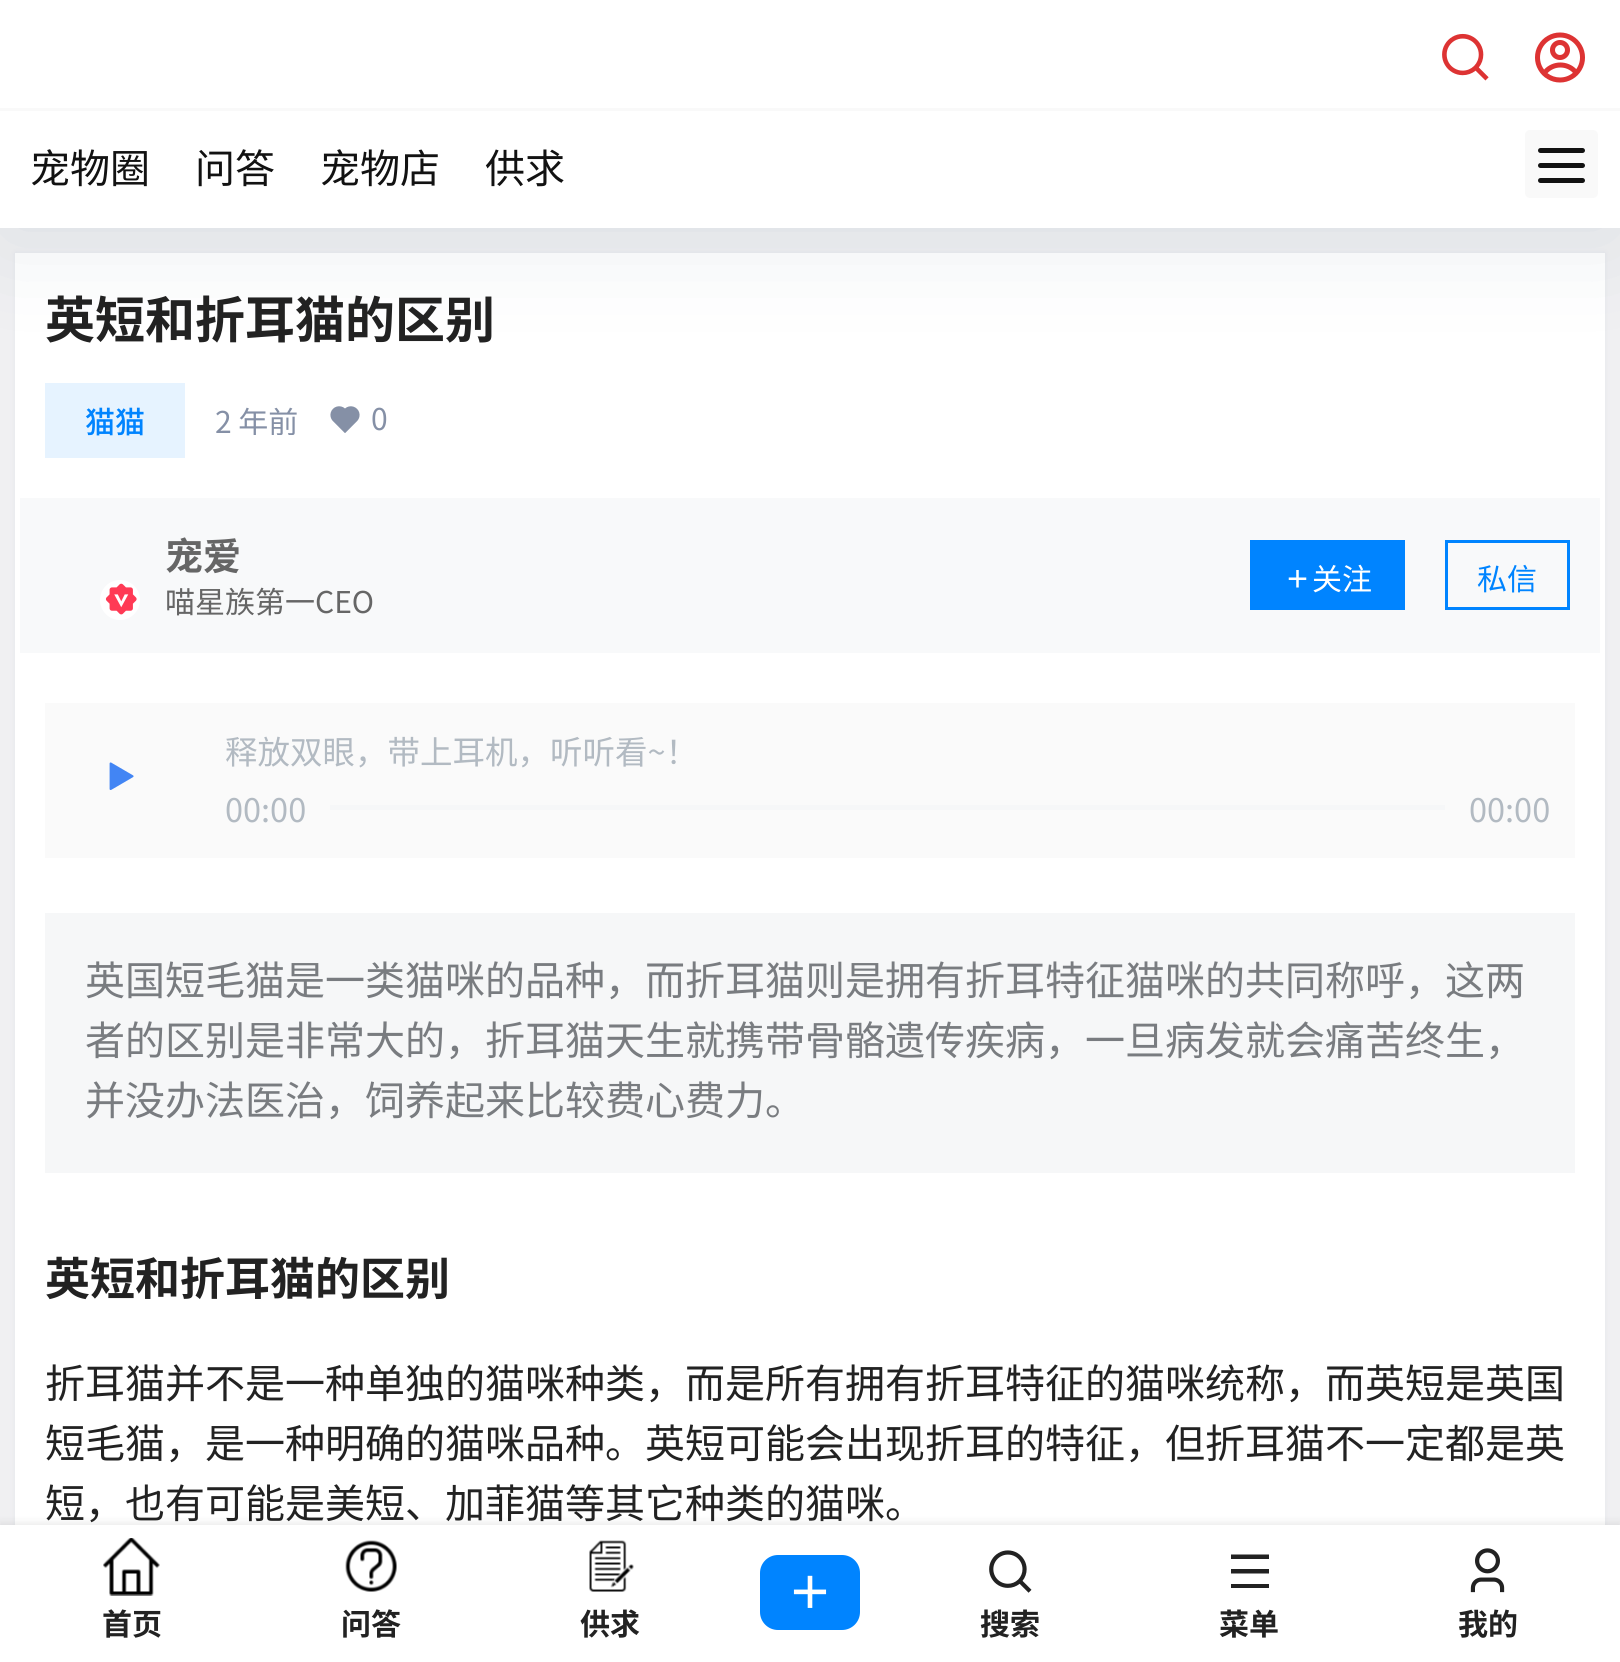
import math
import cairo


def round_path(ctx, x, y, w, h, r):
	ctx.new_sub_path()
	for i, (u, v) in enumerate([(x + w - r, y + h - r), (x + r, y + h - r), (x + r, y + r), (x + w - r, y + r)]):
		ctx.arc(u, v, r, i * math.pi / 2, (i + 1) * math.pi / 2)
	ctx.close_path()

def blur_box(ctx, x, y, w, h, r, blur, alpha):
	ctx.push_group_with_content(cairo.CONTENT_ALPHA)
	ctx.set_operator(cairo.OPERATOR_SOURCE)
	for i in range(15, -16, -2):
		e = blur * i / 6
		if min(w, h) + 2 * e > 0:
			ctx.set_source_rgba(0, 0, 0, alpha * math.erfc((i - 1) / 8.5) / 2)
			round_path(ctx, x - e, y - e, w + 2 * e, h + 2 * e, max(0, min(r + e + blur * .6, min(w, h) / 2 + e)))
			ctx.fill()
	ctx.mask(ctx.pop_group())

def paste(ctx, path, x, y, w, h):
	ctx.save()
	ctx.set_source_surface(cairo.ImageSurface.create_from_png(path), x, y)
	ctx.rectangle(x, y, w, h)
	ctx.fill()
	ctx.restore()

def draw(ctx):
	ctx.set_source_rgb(0.941, 0.941, 0.949)
	ctx.paint()
	ctx.set_source_rgb(0.384, 0.486, 0.6)
	blur_box(ctx, 15, 253, 1590, 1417, 0, 2.5, 0.1)
	ctx.set_source_rgb(1, 1, 1)
	ctx.rectangle(15, 253, 1590, 1272)
	ctx.fill()
	ctx.set_source_rgb(0.902, 0.953, 1)
	ctx.rectangle(45, 383, 140, 75)
	ctx.fill()
	ctx.set_source_rgb(0.067, 0.227, 0.365)
	blur_box(ctx, 0, 13, 1620, 227, 0, 50, 0.1)
	ctx.set_source_rgb(1, 1, 1)
	ctx.rectangle(0, 0, 1620, 228)
	ctx.fill()
	ctx.set_source_rgb(0.973, 0.973, 0.973)
	ctx.rectangle(0, 108, 1620, 3)
	ctx.fill()
	ctx.select_font_face('Noto Sans CJK SC')
	ctx.set_font_size(40)
	ctx.set_source_rgb(0.071, 0.071, 0.071)
	for x, y, s in [
		(30, 183, '宠物圈'),
		(195, 183, '问答'),
		(320, 183, '宠物店'),
		(485, 183, '供求'),
	]:
		ctx.move_to(x, y)
		ctx.show_text(s)
	paste(ctx, 'media/1.png', 1442, 33, 47, 48)
	paste(ctx, 'media/2.png', 1535, 32, 50, 51)
	ctx.set_source_rgb(0.976, 0.976, 0.976)
	round_path(ctx, 1525, 130, 73, 68, 5)
	ctx.fill()
	ctx.set_source_rgb(0.071, 0.071, 0.071)
	round_path(ctx, 1538, 148, 47, 5, 2.5)
	ctx.fill()
	round_path(ctx, 1538, 163, 47, 5, 2.5)
	ctx.fill()
	round_path(ctx, 1538, 178, 47, 5, 2.5)
	ctx.fill()
	ctx.select_font_face('Noto Sans CJK SC', cairo.FONT_SLANT_NORMAL, cairo.FONT_WEIGHT_BOLD)
	ctx.set_font_size(50)
	ctx.set_source_rgb(0.133, 0.133, 0.133)
	ctx.move_to(45, 338)
	ctx.show_text('英短和折耳猫的区别')
	ctx.select_font_face('Noto Sans CJK SC Medium')
	ctx.set_font_size(30)
	ctx.set_source_rgb(0, 0.518, 1)
	ctx.move_to(85, 433)
	ctx.show_text('猫猫')
	ctx.save()
	ctx.rectangle(215, 405, 83, 30)
	ctx.clip()
	ctx.select_font_face('Noto Sans CJK SC')
	ctx.set_source_rgb(0.522, 0.565, 0.651)
	ctx.move_to(215, 433)
	ctx.show_text('2 年前')
	ctx.restore()
	paste(ctx, 'media/3.png', 330, 406, 30, 27)
	ctx.select_font_face('Noto Sans CJK SC')
	ctx.set_source_rgb(0.522, 0.565, 0.651)
	ctx.move_to(371, 430)
	ctx.show_text('0')
	ctx.set_source_rgb(0.969, 0.973, 0.98)
	ctx.rectangle(20, 498, 1580, 155)
	ctx.fill()
	ctx.set_source_rgb(1, 1, 1)
	ctx.arc(120, 600, 20, 0, 2 * math.pi)
	ctx.fill()
	paste(ctx, 'media/4.png', 105, 583, 32, 32)
	ctx.select_font_face('Noto Sans CJK SC', cairo.FONT_SLANT_NORMAL, cairo.FONT_WEIGHT_BOLD)
	ctx.set_font_size(38)
	ctx.set_source_rgb(0.4, 0.4, 0.4)
	ctx.move_to(165, 570)
	ctx.show_text('宠爱')
	ctx.select_font_face('Noto Sans CJK SC')
	ctx.set_font_size(30)
	ctx.move_to(165, 613)
	ctx.show_text('喵星族第一CEO')
	ctx.set_source_rgb(0, 0.518, 1)
	ctx.rectangle(1250, 540, 155, 70)
	ctx.fill()
	paste(ctx, 'media/5.png', 1288, 570, 19, 18)
	ctx.set_source_rgb(1, 1, 1)
	ctx.move_to(1312, 590)
	ctx.show_text('关注')
	ctx.rectangle(1446.5, 541.5, 122, 67)
	ctx.set_source_rgb(0, 0.518, 1)
	ctx.set_line_width(3)
	ctx.stroke()
	ctx.move_to(1477, 590)
	ctx.show_text('私信')
	ctx.set_source_rgb(0.98, 0.98, 0.98)
	ctx.rectangle(45, 703, 1530, 155)
	ctx.fill()
	paste(ctx, 'media/6.png', 109, 762, 25, 28)
	ctx.set_font_size(32.5)
	ctx.set_source_rgb(0.698, 0.729, 0.761)
	ctx.move_to(225, 764)
	ctx.show_text('释放双眼，带上耳机，听听看~！')
	ctx.move_to(225, 822)
	ctx.show_text('00:00')
	ctx.set_source_rgb(0.961, 0.965, 0.969)
	ctx.rectangle(330, 805, 1115, 5)
	ctx.fill()
	ctx.set_source_rgb(0.698, 0.729, 0.761)
	ctx.move_to(1469, 822)
	ctx.show_text('00:00')
	ctx.set_source_rgb(0.961, 0.965, 0.969)
	ctx.rectangle(45, 913, 1530, 260)
	ctx.fill()
	ctx.set_font_size(40)
	ctx.set_source_rgb(0.475, 0.486, 0.502)
	for x, y, s in [
		(85, 995, '英国短毛猫是一类猫咪的品种，而折耳猫则是拥有折耳特征猫咪的共同称呼，这两'),
		(85, 1055, '者的区别是非常大的，折耳猫天生就携带骨骼遗传疾病，一旦病发就会痛苦终生，'),
		(85, 1115, '并没办法医治，饲养起来比较费心费力。'),
	]:
		ctx.move_to(x, y)
		ctx.show_text(s)
	ctx.select_font_face('Noto Sans CJK SC', cairo.FONT_SLANT_NORMAL, cairo.FONT_WEIGHT_BOLD)
	ctx.set_font_size(45)
	ctx.set_source_rgb(0.133, 0.133, 0.133)
	ctx.move_to(45, 1295)
	ctx.show_text('英短和折耳猫的区别')
	ctx.select_font_face('Noto Sans CJK SC')
	ctx.set_font_size(40)
	for x, y, s in [
		(45, 1398, '折耳猫并不是一种单独的猫咪种类，而是所有拥有折耳特征的猫咪统称，而英短是英国'),
		(45, 1458, '短毛猫，是一种明确的猫咪品种。英短可能会出现折耳的特征，但折耳猫不一定都是英'),
		(45, 1518, '短，也有可能是美短、加菲猫等其它种类的猫咪。'),
	]:
		ctx.move_to(x, y)
		ctx.show_text(s)
	ctx.set_source_rgb(0.102, 0.102, 0.102)
	blur_box(ctx, 0, 1523, 1620, 137, 0, 4, 0.1)
	ctx.set_source_rgb(1, 1, 1)
	ctx.rectangle(0, 1525, 1620, 137)
	ctx.fill()
	paste(ctx, 'media/7.png', 103, 1538, 57, 58)
	ctx.select_font_face('Noto Sans CJK SC', cairo.FONT_SLANT_NORMAL, cairo.FONT_WEIGHT_BOLD)
	ctx.set_font_size(30)
	ctx.set_source_rgb(0.133, 0.133, 0.133)
	ctx.move_to(102, 1635)
	ctx.show_text('首页')
	paste(ctx, 'media/8.png', 345, 1540, 52, 52)
	ctx.move_to(341, 1635)
	ctx.show_text('问答')
	paste(ctx, 'media/9.png', 589, 1540, 45, 52)
	ctx.move_to(580, 1635)
	ctx.show_text('供求')
	ctx.set_source_rgb(0, 0.518, 1)
	round_path(ctx, 760, 1555, 100, 75, 18)
	ctx.fill()
	paste(ctx, 'media/10.png', 793, 1575, 34, 33)
	paste(ctx, 'media/11.png', 989, 1550, 43, 43)
	ctx.set_source_rgb(0.133, 0.133, 0.133)
	ctx.move_to(980, 1635)
	ctx.show_text('搜索')
	ctx.new_path()
	ctx.move_to(1231, 1554.5)
	ctx.line_to(1269, 1554.5)
	ctx.line_to(1269, 1559)
	ctx.line_to(1231, 1559)
	ctx.close_path()
	ctx.move_to(1231, 1569)
	ctx.line_to(1269, 1569)
	ctx.line_to(1269, 1573.5)
	ctx.line_to(1231, 1573.5)
	ctx.close_path()
	ctx.move_to(1231, 1584)
	ctx.line_to(1269, 1584)
	ctx.line_to(1269, 1588)
	ctx.line_to(1231, 1588)
	ctx.close_path()
	ctx.fill()
	ctx.move_to(1219, 1635)
	ctx.show_text('菜单')
	paste(ctx, 'media/12.png', 1470, 1548, 35, 45)
	ctx.move_to(1458, 1635)
	ctx.show_text('我的')


surface = cairo.ImageSurface(cairo.FORMAT_RGB24, 1620, 1662)
ctx = cairo.Context(surface)
options = cairo.FontOptions()
options.set_hint_metrics(cairo.HINT_METRICS_OFF)
options.set_hint_style(cairo.HINT_STYLE_NONE)
ctx.set_font_options(options)
ctx.set_miter_limit(4)
draw(ctx)
surface.write_to_png('image.png')
